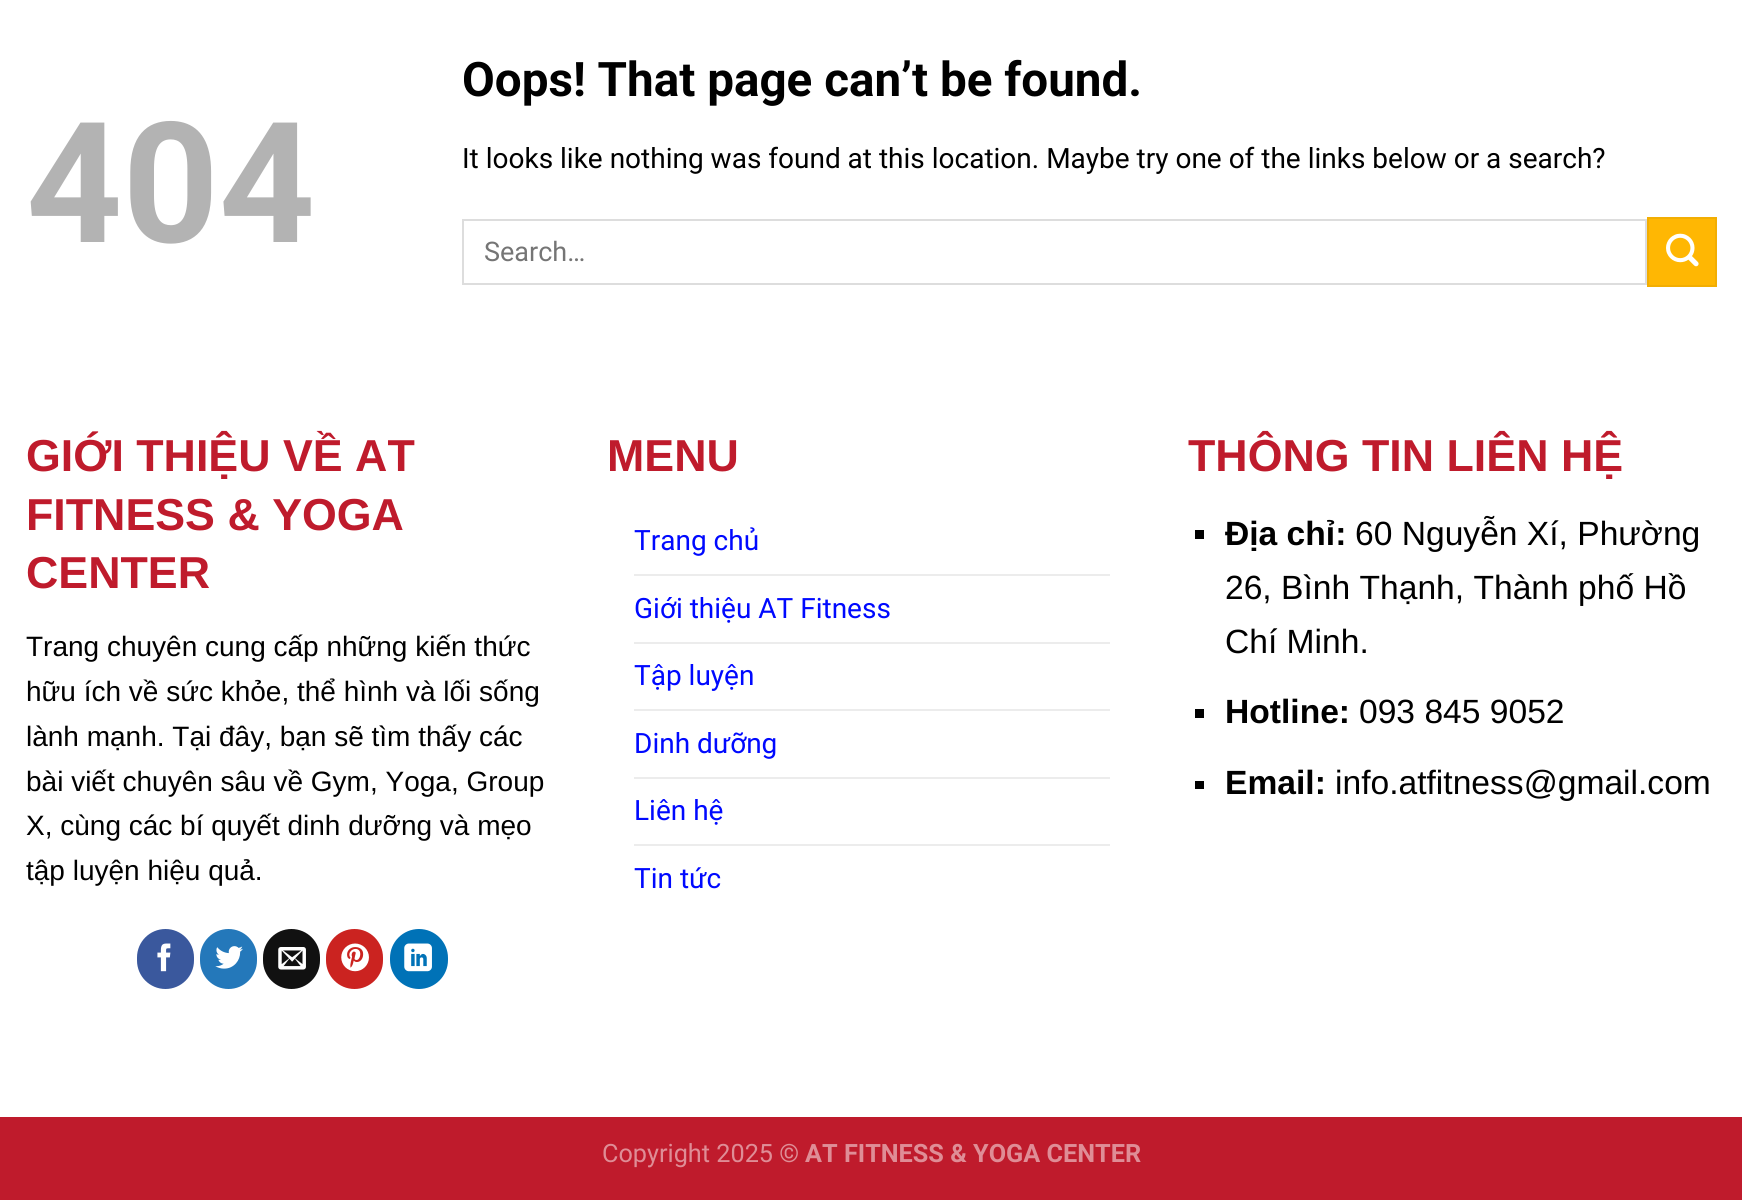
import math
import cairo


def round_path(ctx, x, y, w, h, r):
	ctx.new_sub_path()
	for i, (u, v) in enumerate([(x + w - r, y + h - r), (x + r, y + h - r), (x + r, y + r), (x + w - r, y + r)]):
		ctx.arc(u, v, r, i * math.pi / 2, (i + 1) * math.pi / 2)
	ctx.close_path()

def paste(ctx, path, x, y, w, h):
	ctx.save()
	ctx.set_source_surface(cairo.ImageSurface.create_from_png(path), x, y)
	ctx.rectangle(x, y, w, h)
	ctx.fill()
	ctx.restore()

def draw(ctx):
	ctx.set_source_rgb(1, 1, 1)
	ctx.paint()
	ctx.select_font_face('Roboto', cairo.FONT_SLANT_NORMAL, cairo.FONT_WEIGHT_BOLD)
	ctx.set_font_size(168)
	ctx.set_source_rgb(0.702, 0.702, 0.702)
	ctx.move_to(26, 242)
	ctx.show_text('404')
	ctx.set_font_size(47.6)
	ctx.set_source_rgb(0, 0, 0)
	ctx.move_to(462, 96)
	ctx.show_text('Oops! That page can’t be found.')
	ctx.select_font_face('Roboto')
	ctx.set_font_size(28)
	ctx.move_to(462, 168)
	ctx.show_text('It looks like nothing was found at this location. Maybe try one of the links below or a search?')
	ctx.rectangle(463, 220, 1183, 64)
	ctx.set_source_rgb(0.867, 0.867, 0.867)
	ctx.stroke()
	ctx.set_font_size(27)
	ctx.set_source_rgb(0.459, 0.459, 0.459)
	ctx.move_to(484, 261)
	ctx.show_text('Search…')
	ctx.set_source_rgb(1, 0.718, 0.012)
	ctx.rectangle(1648, 218, 68, 68)
	ctx.fill_preserve()
	ctx.set_source_rgb(0.949, 0.682, 0.012)
	ctx.stroke()
	paste(ctx, 'media/1.png', 1666, 233, 33, 34)
	ctx.select_font_face('Liberation Sans', cairo.FONT_SLANT_NORMAL, cairo.FONT_WEIGHT_BOLD)
	ctx.set_font_size(44.75)
	ctx.set_source_rgb(0.749, 0.106, 0.173)
	for x, y, s in [
		(26, 471, 'GIỚI THIỆU VỀ AT'),
		(26, 530, 'FITNESS & YOGA'),
		(26, 588, 'CENTER'),
	]:
		ctx.move_to(x, y)
		ctx.show_text(s)
	ctx.select_font_face('Liberation Sans')
	ctx.set_font_size(28)
	ctx.set_source_rgb(0, 0, 0)
	for x, y, s in [
		(26, 656, 'Trang chuyên cung cấp những kiến thức'),
		(26, 701, 'hữu ích về sức khỏe, thể hình và lối sống'),
		(26, 746, 'lành mạnh. Tại đây, bạn sẽ tìm thấy các'),
		(26, 791, 'bài viết chuyên sâu về Gym, Yoga, Group'),
		(26, 835, 'X, cùng các bí quyết dinh dưỡng và mẹo'),
		(26, 880, 'tập luyện hiệu quả.'),
	]:
		ctx.move_to(x, y)
		ctx.show_text(s)
	ctx.set_source_rgb(0.227, 0.345, 0.616)
	round_path(ctx, 138, 930, 55, 58, 27.5)
	ctx.fill_preserve()
	ctx.stroke()
	paste(ctx, 'media/2.png', 157, 943, 14, 29)
	ctx.set_source_rgb(0.141, 0.471, 0.729)
	round_path(ctx, 201, 930, 55, 58, 27.5)
	ctx.fill_preserve()
	ctx.stroke()
	paste(ctx, 'media/3.png', 215, 946, 28, 23)
	ctx.set_source_rgb(0.067, 0.067, 0.067)
	round_path(ctx, 264, 930, 55, 58, 27.5)
	ctx.fill_preserve()
	ctx.stroke()
	paste(ctx, 'media/4.png', 278, 947, 28, 23)
	ctx.set_source_rgb(0.796, 0.137, 0.125)
	round_path(ctx, 327, 930, 55, 58, 27.5)
	ctx.fill_preserve()
	ctx.stroke()
	paste(ctx, 'media/5.png', 341, 943, 28, 29)
	ctx.set_source_rgb(0, 0.447, 0.718)
	round_path(ctx, 391, 930, 56, 58, 28)
	ctx.fill_preserve()
	ctx.stroke()
	paste(ctx, 'media/6.png', 404, 943, 28, 29)
	ctx.select_font_face('Liberation Sans', cairo.FONT_SLANT_NORMAL, cairo.FONT_WEIGHT_BOLD)
	ctx.set_font_size(44.75)
	ctx.set_source_rgb(0.749, 0.106, 0.173)
	ctx.move_to(607, 471)
	ctx.show_text('MENU')
	ctx.select_font_face('Roboto')
	ctx.set_font_size(28)
	ctx.set_source_rgb(0, 0.039, 1)
	ctx.move_to(634, 550)
	ctx.show_text('Trang chủ')
	ctx.set_source_rgb(0.925, 0.925, 0.925)
	ctx.rectangle(634, 574, 476, 2)
	ctx.fill()
	ctx.set_source_rgb(0, 0.039, 1)
	ctx.move_to(634, 618)
	ctx.show_text('Giới thiệu AT Fitness')
	ctx.set_source_rgb(0.925, 0.925, 0.925)
	ctx.rectangle(634, 642, 476, 2)
	ctx.fill()
	ctx.set_source_rgb(0, 0.039, 1)
	ctx.move_to(634, 685)
	ctx.show_text('Tập luyện')
	ctx.set_source_rgb(0.925, 0.925, 0.925)
	ctx.rectangle(634, 709, 476, 2)
	ctx.fill()
	ctx.set_source_rgb(0, 0.039, 1)
	ctx.move_to(634, 753)
	ctx.show_text('Dinh dưỡng')
	ctx.set_source_rgb(0.925, 0.925, 0.925)
	ctx.rectangle(634, 777, 476, 2)
	ctx.fill()
	ctx.set_source_rgb(0, 0.039, 1)
	ctx.move_to(634, 820)
	ctx.show_text('Liên hệ')
	ctx.set_source_rgb(0.925, 0.925, 0.925)
	ctx.rectangle(634, 844, 476, 2)
	ctx.fill()
	ctx.set_source_rgb(0, 0.039, 1)
	ctx.move_to(634, 888)
	ctx.show_text('Tin tức')
	ctx.select_font_face('Liberation Sans', cairo.FONT_SLANT_NORMAL, cairo.FONT_WEIGHT_BOLD)
	ctx.set_font_size(44.75)
	ctx.set_source_rgb(0.749, 0.106, 0.173)
	ctx.move_to(1188, 471)
	ctx.show_text('THÔNG TIN LIÊN HỆ')
	ctx.set_source_rgb(0, 0, 0)
	ctx.rectangle(1195, 530, 9, 9)
	ctx.fill()
	ctx.set_font_size(33.6)
	ctx.move_to(1225, 545)
	ctx.show_text('Địa chỉ:')
	ctx.select_font_face('Liberation Sans')
	for x, y, s in [
		(1355, 545, '60 Nguyễn Xí, Phường'),
		(1225, 599, '26, Bình Thạnh, Thành phố Hồ'),
		(1225, 653, 'Chí Minh.'),
	]:
		ctx.move_to(x, y)
		ctx.show_text(s)
	ctx.rectangle(1195, 709, 9, 9)
	ctx.fill()
	ctx.select_font_face('Liberation Sans', cairo.FONT_SLANT_NORMAL, cairo.FONT_WEIGHT_BOLD)
	ctx.move_to(1225, 723)
	ctx.show_text('Hotline:')
	ctx.select_font_face('Liberation Sans')
	ctx.move_to(1359, 723)
	ctx.show_text('093 845 9052')
	ctx.rectangle(1195, 781, 9, 8)
	ctx.fill()
	ctx.select_font_face('Liberation Sans', cairo.FONT_SLANT_NORMAL, cairo.FONT_WEIGHT_BOLD)
	ctx.move_to(1225, 794)
	ctx.show_text('Email:')
	ctx.select_font_face('Liberation Sans')
	ctx.move_to(1335, 794)
	ctx.show_text('info.atfitness@gmail.com')
	ctx.set_source_rgb(0.749, 0.106, 0.173)
	ctx.rectangle(0, 1117, 1742, 83)
	ctx.fill()
	ctx.select_font_face('Roboto')
	ctx.set_font_size(25.25)
	ctx.set_source_rgb(0.875, 0.553, 0.588)
	ctx.move_to(602, 1162)
	ctx.show_text('Copyright 2025 ©')
	ctx.select_font_face('Roboto', cairo.FONT_SLANT_NORMAL, cairo.FONT_WEIGHT_BOLD)
	ctx.move_to(805, 1162)
	ctx.show_text('AT FITNESS & YOGA CENTER')


surface = cairo.ImageSurface(cairo.FORMAT_RGB24, 1742, 1200)
ctx = cairo.Context(surface)
options = cairo.FontOptions()
options.set_hint_metrics(cairo.HINT_METRICS_OFF)
options.set_hint_style(cairo.HINT_STYLE_NONE)
ctx.set_font_options(options)
ctx.set_miter_limit(4)
draw(ctx)
surface.write_to_png('image.png')
